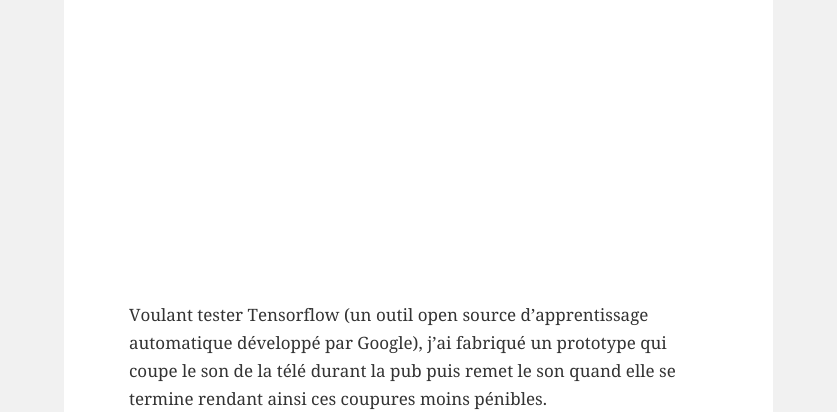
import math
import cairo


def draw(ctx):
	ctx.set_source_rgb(0.945, 0.945, 0.945)
	ctx.paint()
	ctx.set_source_rgb(1, 1, 1)
	ctx.rectangle(64, 0, 709, 412)
	ctx.fill()
	ctx.select_font_face('Noto Serif')
	ctx.set_font_size(17)
	ctx.set_source_rgb(0.2, 0.2, 0.2)
	for x, y, s in [
		(129, 321, 'Voulant tester Tensorflow (un outil open source d’apprentissage'),
		(129, 349, 'automatique développé par Google), j’ai fabriqué un prototype qui'),
		(129, 377, 'coupe le son de la télé durant la pub puis remet le son quand elle se'),
		(129, 405, 'termine rendant ainsi ces coupures moins pénibles.'),
	]:
		ctx.move_to(x, y)
		ctx.show_text(s)


surface = cairo.ImageSurface(cairo.FORMAT_RGB24, 837, 412)
ctx = cairo.Context(surface)
options = cairo.FontOptions()
options.set_hint_metrics(cairo.HINT_METRICS_OFF)
options.set_hint_style(cairo.HINT_STYLE_NONE)
ctx.set_font_options(options)
ctx.set_miter_limit(4)
draw(ctx)
surface.write_to_png('image.png')
